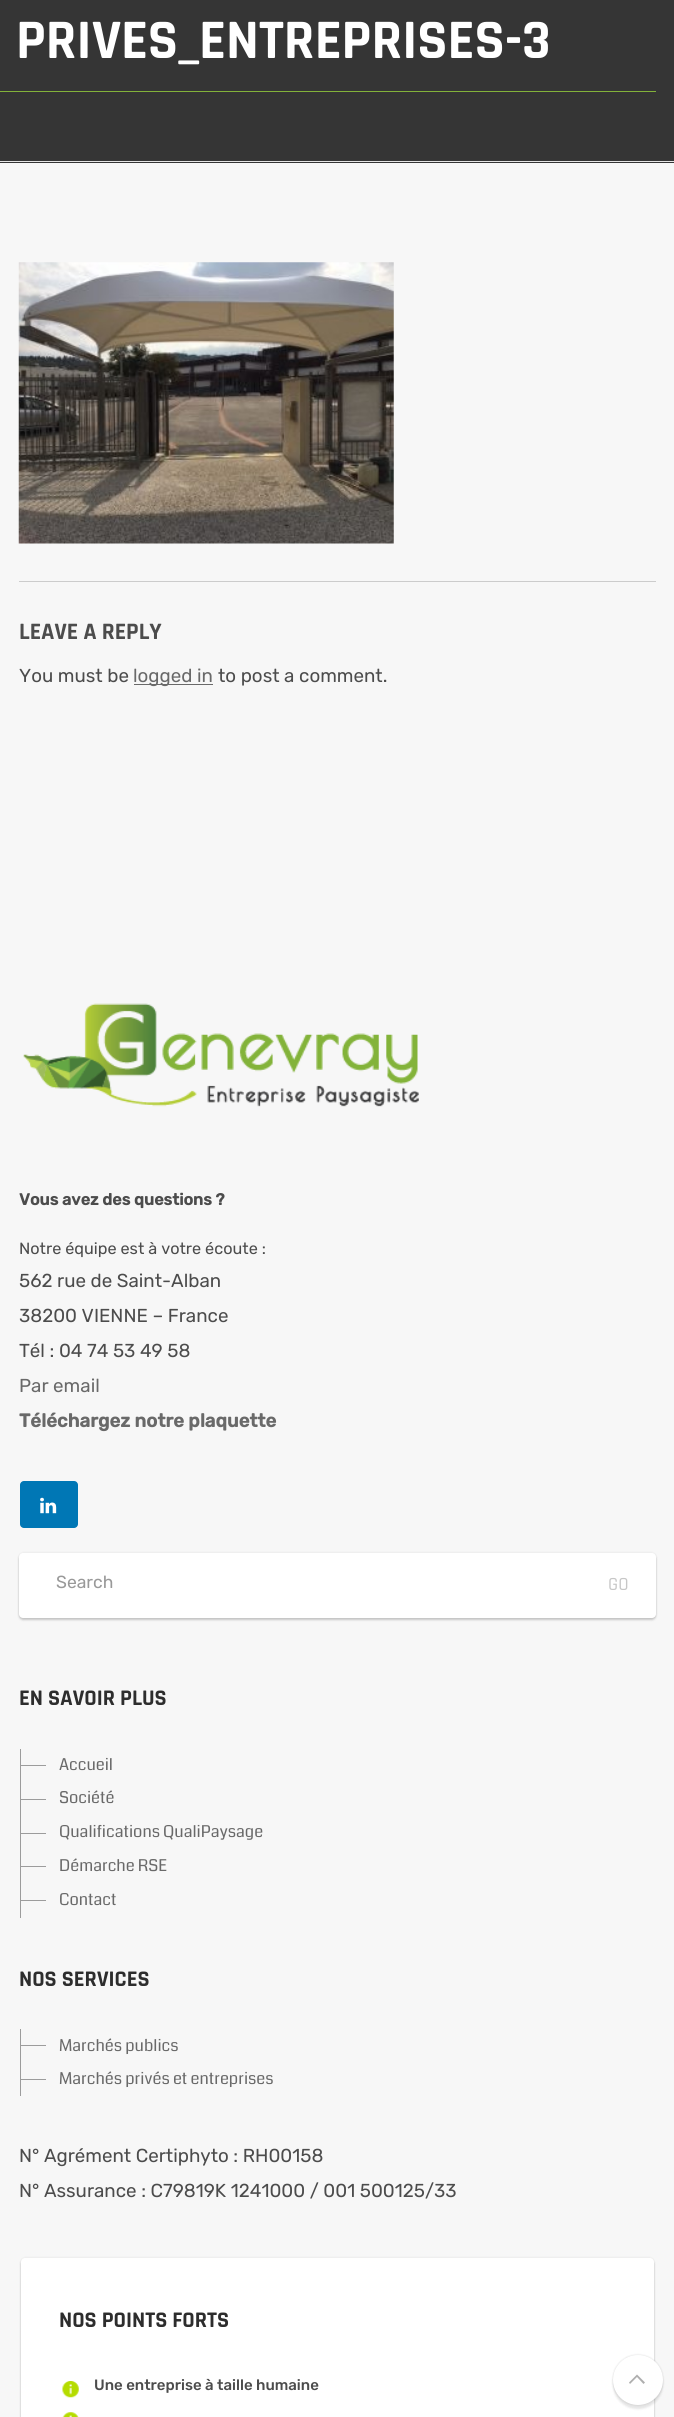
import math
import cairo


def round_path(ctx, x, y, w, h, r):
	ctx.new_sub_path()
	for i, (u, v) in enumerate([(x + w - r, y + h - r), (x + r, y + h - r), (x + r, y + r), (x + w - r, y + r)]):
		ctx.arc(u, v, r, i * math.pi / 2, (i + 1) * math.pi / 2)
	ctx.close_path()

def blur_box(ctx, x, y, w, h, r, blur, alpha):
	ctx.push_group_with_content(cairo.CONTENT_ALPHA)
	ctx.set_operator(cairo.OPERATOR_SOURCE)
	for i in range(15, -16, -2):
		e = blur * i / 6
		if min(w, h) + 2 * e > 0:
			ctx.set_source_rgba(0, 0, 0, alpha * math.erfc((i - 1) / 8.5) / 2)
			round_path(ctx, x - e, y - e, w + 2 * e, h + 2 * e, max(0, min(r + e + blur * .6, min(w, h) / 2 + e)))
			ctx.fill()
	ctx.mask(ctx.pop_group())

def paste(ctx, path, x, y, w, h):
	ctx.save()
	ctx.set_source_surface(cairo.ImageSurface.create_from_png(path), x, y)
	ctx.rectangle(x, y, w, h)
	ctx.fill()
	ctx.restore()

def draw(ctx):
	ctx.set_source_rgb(0.965, 0.965, 0.965)
	ctx.paint()
	ctx.set_source_rgb(0.208, 0.208, 0.208)
	ctx.rectangle(0, 0, 674, 163)
	ctx.fill()
	ctx.set_source_rgb(0.902, 0.902, 0.902)
	ctx.rectangle(0, 161, 674, 1)
	ctx.fill()
	ctx.select_font_face('Rajdhani', cairo.FONT_SLANT_NORMAL, cairo.FONT_WEIGHT_BOLD)
	ctx.set_font_size(56.25)
	ctx.set_source_rgb(1, 1, 1)
	ctx.move_to(16, 58)
	ctx.show_text('PRIVES_ENTREPRISES-3')
	ctx.set_source_rgb(0.514, 0.698, 0.227)
	ctx.rectangle(0, 91, 656, 1)
	ctx.fill()
	paste(ctx, 'media/1.png', 18, 262, 376, 282)
	ctx.set_source_rgb(0.8, 0.8, 0.8)
	ctx.rectangle(19, 581, 637, 1)
	ctx.fill()
	ctx.set_font_size(23.75)
	ctx.set_source_rgb(0.298, 0.298, 0.298)
	ctx.move_to(19, 639)
	ctx.show_text('LEAVE A REPLY')
	ctx.select_font_face('Rubik')
	ctx.set_font_size(18.75)
	ctx.move_to(19, 682)
	ctx.show_text('You must be')
	ctx.set_source_rgb(0.412, 0.412, 0.412)
	ctx.rectangle(134, 684, 79, 1)
	ctx.fill()
	ctx.move_to(133, 682)
	ctx.show_text('logged in')
	ctx.set_source_rgb(0.298, 0.298, 0.298)
	ctx.move_to(218, 682)
	ctx.show_text('to post a comment.')
	paste(ctx, 'media/2.png', 23, 1003, 396, 104)
	ctx.select_font_face('Rubik', cairo.FONT_SLANT_NORMAL, cairo.FONT_WEIGHT_BOLD)
	ctx.set_font_size(16.25)
	ctx.move_to(19, 1205)
	ctx.show_text('Vous avez des questions ?')
	ctx.select_font_face('Rubik')
	ctx.move_to(19, 1254)
	ctx.show_text('Notre équipe est à votre écoute :')
	ctx.set_font_size(18.75)
	for x, y, s in [
		(19, 1287, '562 rue de Saint-Alban'),
		(19, 1322, '38200 VIENNE – France'),
		(19, 1357, 'Tél : 04 74 53 49 58'),
	]:
		ctx.move_to(x, y)
		ctx.show_text(s)
	ctx.set_source_rgb(0.412, 0.412, 0.412)
	ctx.move_to(19, 1392)
	ctx.show_text('Par email')
	ctx.select_font_face('Rubik', cairo.FONT_SLANT_NORMAL, cairo.FONT_WEIGHT_BOLD)
	ctx.move_to(19, 1427)
	ctx.show_text('Téléchargez notre plaquette')
	ctx.set_source_rgb(0, 0.467, 0.71)
	round_path(ctx, 20, 1481, 58, 47, 4)
	ctx.fill()
	paste(ctx, 'media/3.png', 40, 1497, 17, 17)
	ctx.set_source_rgb(0, 0, 0)
	blur_box(ctx, 19, 1555, 637, 65, 4, 1, 0.18)
	blur_box(ctx, 19, 1553, 637, 65, 4, 1, 0.1)
	ctx.set_source_rgb(1, 1, 1)
	round_path(ctx, 19, 1553, 637, 65, 4)
	ctx.fill()
	ctx.select_font_face('Rubik')
	ctx.set_font_size(17.5)
	ctx.set_source_rgb(0.6, 0.6, 0.6)
	ctx.move_to(56, 1588)
	ctx.show_text('Search')
	ctx.select_font_face('Rajdhani Medium')
	ctx.set_font_size(18.75)
	ctx.set_source_rgb(0.78, 0.78, 0.78)
	ctx.move_to(608, 1590)
	ctx.show_text('GO')
	ctx.select_font_face('Rajdhani', cairo.FONT_SLANT_NORMAL, cairo.FONT_WEIGHT_BOLD)
	ctx.set_font_size(22.5)
	ctx.set_source_rgb(0.176, 0.176, 0.176)
	ctx.move_to(19, 1705)
	ctx.show_text('EN SAVOIR PLUS')
	ctx.set_source_rgb(0.612, 0.612, 0.612)
	ctx.rectangle(20, 1749, 1, 169)
	ctx.fill()
	ctx.rectangle(21, 1765, 25, 1)
	ctx.fill()
	ctx.select_font_face('Coda')
	ctx.set_font_size(16.25)
	ctx.set_source_rgb(0.412, 0.412, 0.412)
	ctx.move_to(59, 1770)
	ctx.show_text('Accueil')
	ctx.set_source_rgb(0.612, 0.612, 0.612)
	ctx.rectangle(21, 1799, 25, 1)
	ctx.fill()
	ctx.set_source_rgb(0.412, 0.412, 0.412)
	ctx.move_to(59, 1803)
	ctx.show_text('Société')
	ctx.set_source_rgb(0.612, 0.612, 0.612)
	ctx.rectangle(21, 1833, 25, 1)
	ctx.fill()
	ctx.set_source_rgb(0.412, 0.412, 0.412)
	ctx.move_to(59, 1837)
	ctx.show_text('Qualifications QualiPaysage')
	ctx.set_source_rgb(0.612, 0.612, 0.612)
	ctx.rectangle(21, 1866, 25, 1)
	ctx.fill()
	ctx.set_source_rgb(0.412, 0.412, 0.412)
	ctx.move_to(59, 1871)
	ctx.show_text('Démarche RSE')
	ctx.set_source_rgb(0.612, 0.612, 0.612)
	ctx.rectangle(21, 1900, 25, 1)
	ctx.fill()
	ctx.set_source_rgb(0.412, 0.412, 0.412)
	ctx.move_to(59, 1905)
	ctx.show_text('Contact')
	ctx.select_font_face('Rajdhani', cairo.FONT_SLANT_NORMAL, cairo.FONT_WEIGHT_BOLD)
	ctx.set_font_size(22.5)
	ctx.set_source_rgb(0.176, 0.176, 0.176)
	ctx.move_to(19, 1986)
	ctx.show_text('NOS SERVICES')
	ctx.set_source_rgb(0.612, 0.612, 0.612)
	ctx.rectangle(20, 2029, 1, 67)
	ctx.fill()
	ctx.rectangle(21, 2045, 25, 1)
	ctx.fill()
	ctx.select_font_face('Coda')
	ctx.set_font_size(16.25)
	ctx.set_source_rgb(0.412, 0.412, 0.412)
	ctx.move_to(59, 2051)
	ctx.show_text('Marchés publics')
	ctx.set_source_rgb(0.612, 0.612, 0.612)
	ctx.rectangle(21, 2079, 25, 1)
	ctx.fill()
	ctx.set_source_rgb(0.412, 0.412, 0.412)
	ctx.move_to(59, 2084)
	ctx.show_text('Marchés privés et entreprises')
	ctx.select_font_face('Rubik')
	ctx.set_font_size(18.75)
	ctx.set_source_rgb(0.298, 0.298, 0.298)
	ctx.move_to(19, 2162)
	ctx.show_text('N° Agrément Certiphyto : RH00158')
	ctx.move_to(19, 2197)
	ctx.show_text('N° Assurance : C79819K 1241000 / 001 500125/33')
	ctx.set_source_rgb(0, 0, 0)
	blur_box(ctx, 21, 2260, 633, 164, 4, 1, 0.18)
	blur_box(ctx, 21, 2258, 633, 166, 4, 1, 0.1)
	ctx.set_source_rgb(1, 1, 1)
	round_path(ctx, 21, 2258, 633, 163, 4)
	ctx.fill()
	ctx.select_font_face('Rajdhani', cairo.FONT_SLANT_NORMAL, cairo.FONT_WEIGHT_BOLD)
	ctx.set_font_size(22.5)
	ctx.set_source_rgb(0.176, 0.176, 0.176)
	ctx.move_to(59, 2327)
	ctx.show_text('NOS POINTS FORTS')
	paste(ctx, 'media/4.png', 62, 2381, 17, 17)
	ctx.select_font_face('Rubik Medium')
	ctx.set_font_size(15)
	ctx.set_source_rgb(0.298, 0.298, 0.298)
	ctx.move_to(94, 2390)
	ctx.show_text('Une entreprise à taille humaine')
	paste(ctx, 'media/5.png', 62, 2412, 17, 5)
	ctx.set_source_rgb(0, 0, 0)
	blur_box(ctx, 613, 2359, 50, 50, 25, 1, 0.1)
	blur_box(ctx, 613, 2355, 50, 50, 25, 1, 0.06)
	blur_box(ctx, 613, 2355, 50, 50, 25, 1, 0.1)
	ctx.set_source_rgb(1, 1, 1)
	ctx.arc(638, 2380, 25, 0, 2 * math.pi)
	ctx.fill()
	ctx.set_source_rgb(0.682, 0.682, 0.682)
	ctx.new_path()
	ctx.move_to(629, 2382.5)
	ctx.line_to(637, 2374.5)
	ctx.line_to(637, 2377)
	ctx.line_to(630, 2384)
	ctx.close_path()
	ctx.move_to(637, 2374.5)
	ctx.line_to(645, 2382.5)
	ctx.line_to(643.5, 2384)
	ctx.line_to(637, 2377)
	ctx.close_path()
	ctx.fill()


surface = cairo.ImageSurface(cairo.FORMAT_RGB24, 674, 2417)
ctx = cairo.Context(surface)
options = cairo.FontOptions()
options.set_hint_metrics(cairo.HINT_METRICS_OFF)
options.set_hint_style(cairo.HINT_STYLE_NONE)
ctx.set_font_options(options)
ctx.set_miter_limit(4)
draw(ctx)
surface.write_to_png('image.png')
